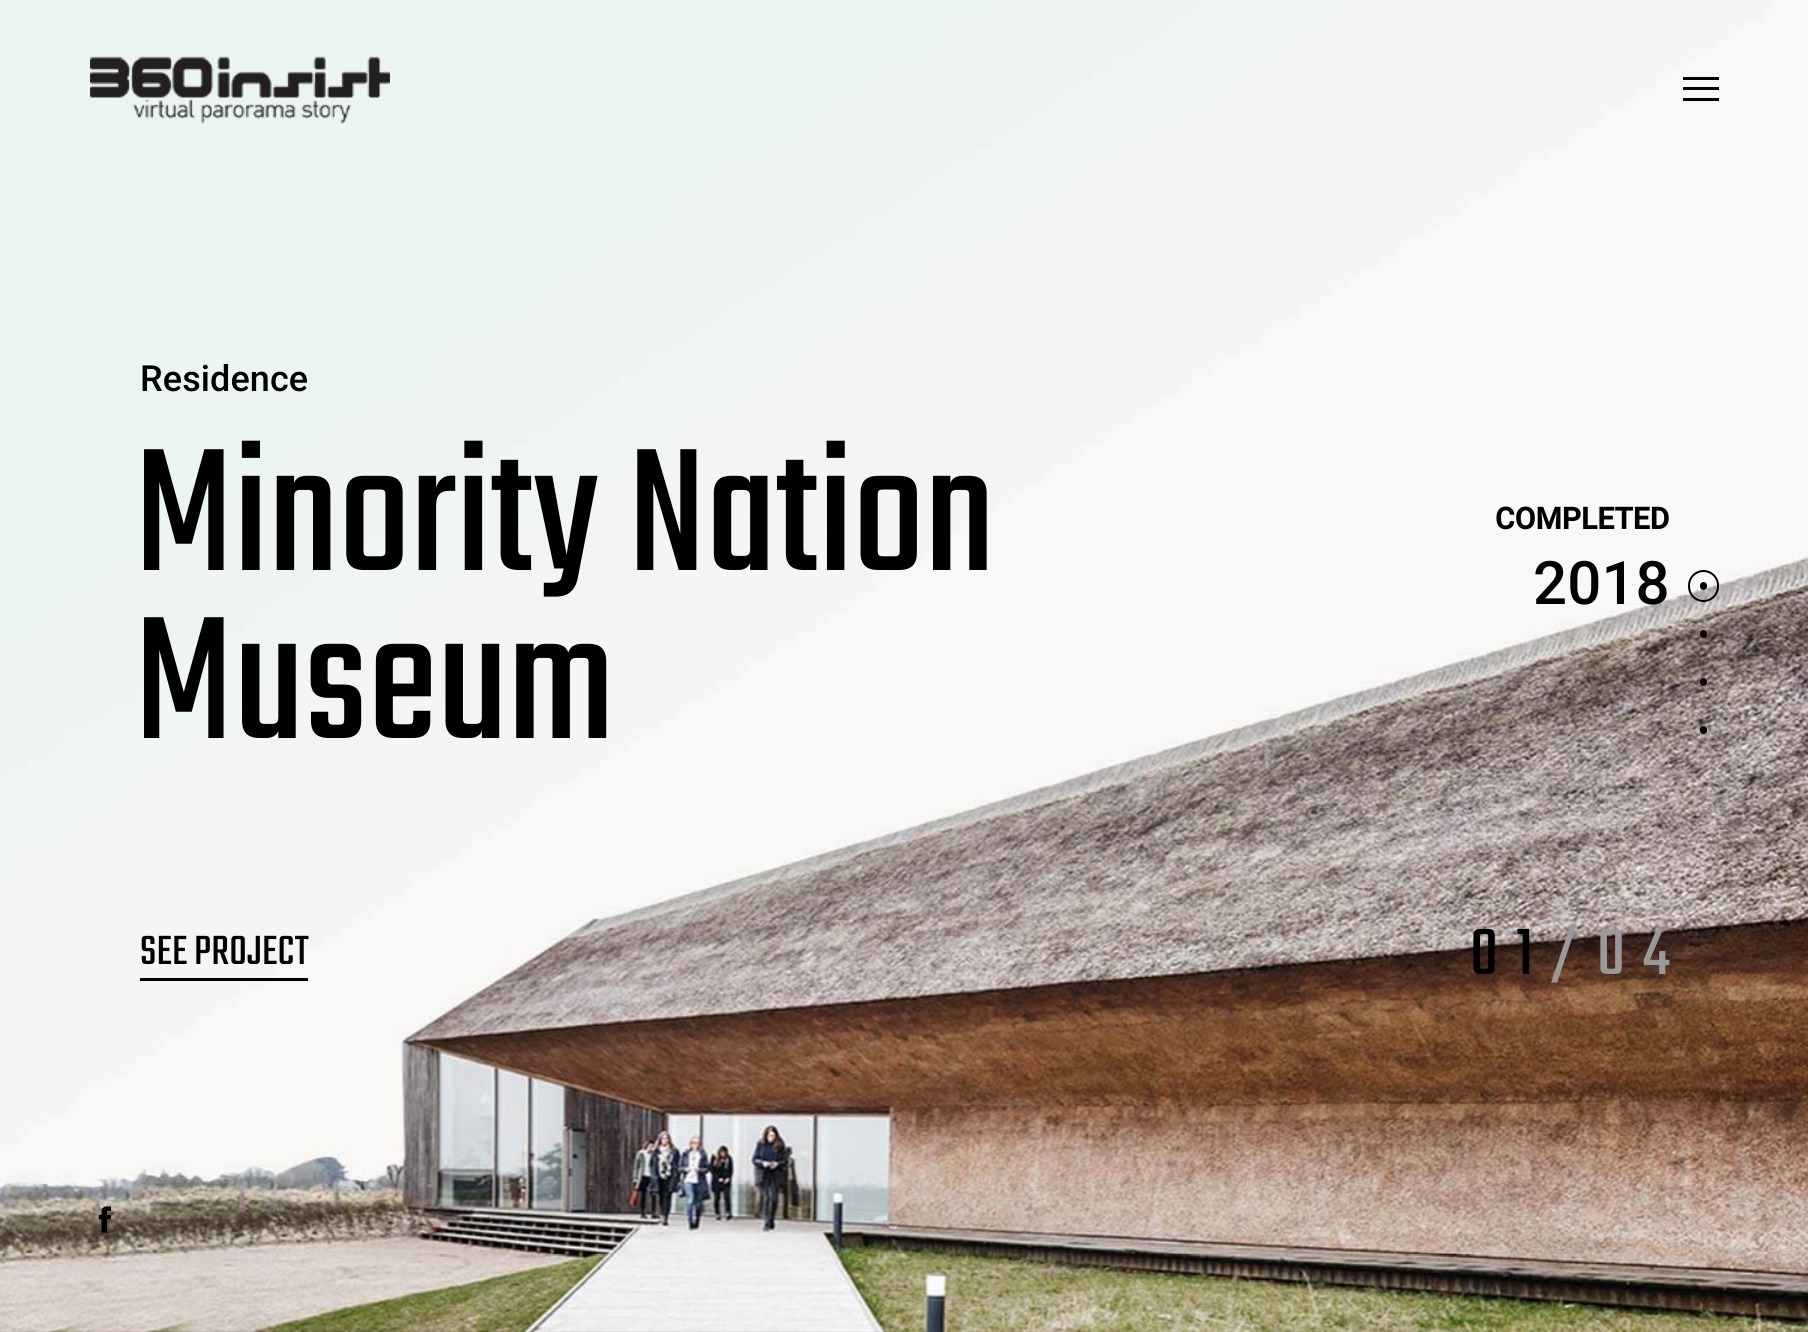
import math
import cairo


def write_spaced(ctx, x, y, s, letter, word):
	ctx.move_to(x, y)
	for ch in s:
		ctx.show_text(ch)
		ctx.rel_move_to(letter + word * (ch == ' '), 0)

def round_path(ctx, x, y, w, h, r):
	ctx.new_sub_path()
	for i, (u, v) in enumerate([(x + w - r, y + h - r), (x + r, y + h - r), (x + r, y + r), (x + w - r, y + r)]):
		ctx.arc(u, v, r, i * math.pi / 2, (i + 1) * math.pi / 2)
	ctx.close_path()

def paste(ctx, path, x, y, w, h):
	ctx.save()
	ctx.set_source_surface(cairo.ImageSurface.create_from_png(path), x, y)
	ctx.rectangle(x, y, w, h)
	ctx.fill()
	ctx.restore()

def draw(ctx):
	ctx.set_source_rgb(1, 1, 1)
	ctx.paint()
	paste(ctx, 'media/3.png', 0, 1331, 1808, 1)
	paste(ctx, 'media/4.png', 0, 1331, 1808, 1)
	paste(ctx, 'media/5.png', 0, 1331, 1808, 1)
	paste(ctx, 'media/2.png', 0, 0, 1808, 1332)
	paste(ctx, 'media/1.png', 90, 56, 300, 68)
	ctx.set_source_rgb(0, 0, 0)
	ctx.rectangle(1683, 77, 36, 3)
	ctx.rectangle(1683, 87, 36, 3)
	ctx.rectangle(1683, 98, 36, 3)
	ctx.fill()
	ctx.select_font_face('Roboto Medium')
	ctx.set_font_size(36)
	write_spaced(ctx, 140, 391, 'Residence', 0.1, 0)
	ctx.select_font_face('Teko')
	ctx.set_font_size(193)
	write_spaced(ctx, 134, 570, 'Minority Nation', 0.1, 0)
	write_spaced(ctx, 134, 738, 'Museum', 0.1, 0)
	ctx.select_font_face('Roboto', cairo.FONT_SLANT_NORMAL, cairo.FONT_WEIGHT_BOLD)
	ctx.set_font_size(30)
	write_spaced(ctx, 1495, 529, 'COMPLETED', 0.1, 0)
	ctx.select_font_face('Roboto Medium')
	ctx.set_font_size(60)
	write_spaced(ctx, 1533, 604, '2018', 0.1, 0)
	ctx.select_font_face('Teko')
	ctx.set_font_size(45)
	write_spaced(ctx, 140, 964, 'SEE PROJECT', 0.1, 0)
	ctx.rectangle(140, 978, 168, 3)
	ctx.fill()
	ctx.set_font_size(72)
	write_spaced(ctx, 1470, 974, '01', 18, 0)
	ctx.set_source_rgb(0.6, 0.6, 0.6)
	write_spaced(ctx, 1551, 974, '/04', 18, 0)
	paste(ctx, 'media/6.png', 98, 1206, 14, 27)
	round_path(ctx, 1689, 571, 29, 30, 14.5)
	ctx.set_source_rgb(0, 0, 0)
	ctx.stroke()
	round_path(ctx, 1701, 583, 5, 6, 2.5)
	ctx.fill_preserve()
	ctx.stroke()
	round_path(ctx, 1701, 631, 5, 6, 2.5)
	ctx.fill_preserve()
	ctx.stroke()
	round_path(ctx, 1701, 679, 5, 6, 2.5)
	ctx.fill_preserve()
	ctx.stroke()
	round_path(ctx, 1701, 727, 5, 6, 2.5)
	ctx.fill_preserve()
	ctx.stroke()


surface = cairo.ImageSurface(cairo.FORMAT_RGB24, 1808, 1332)
ctx = cairo.Context(surface)
options = cairo.FontOptions()
options.set_hint_metrics(cairo.HINT_METRICS_OFF)
options.set_hint_style(cairo.HINT_STYLE_NONE)
ctx.set_font_options(options)
ctx.set_miter_limit(4)
draw(ctx)
surface.write_to_png('image.png')
